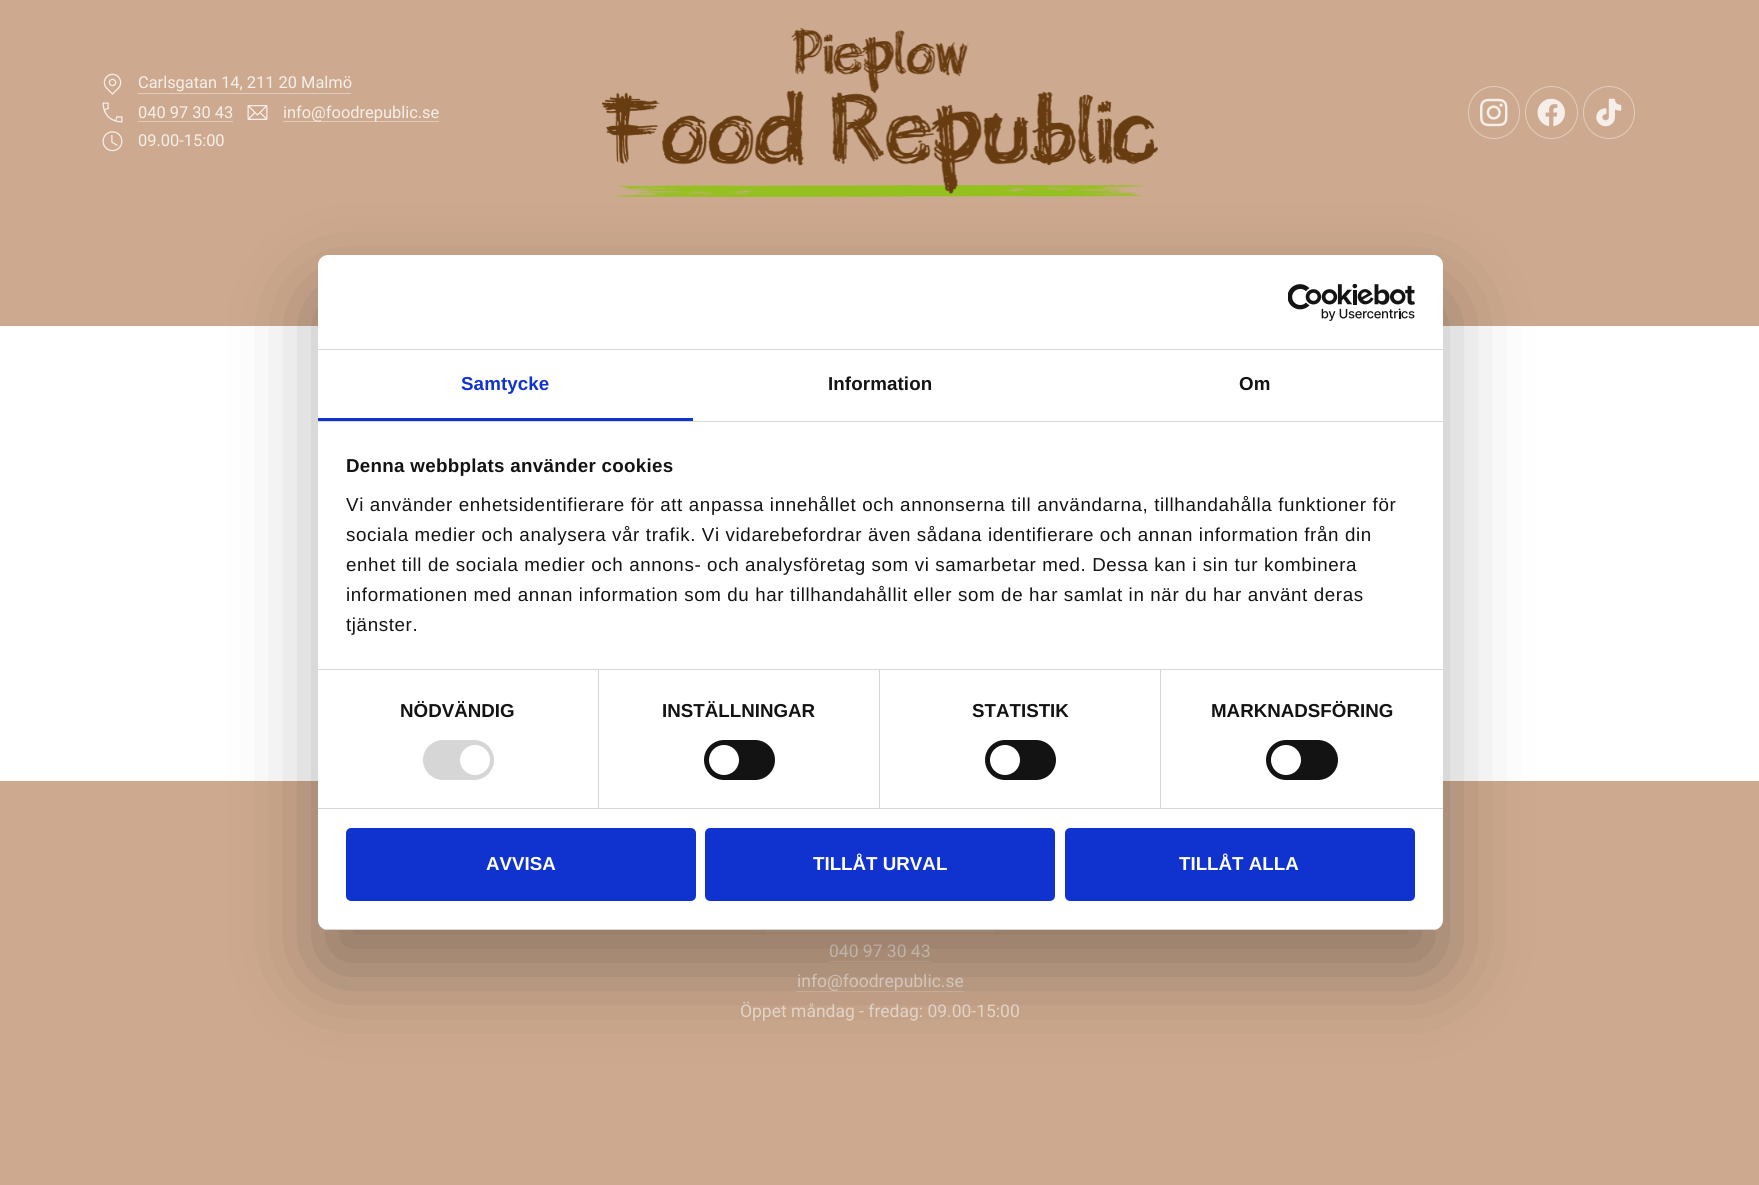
import math
import cairo


def write_spaced(ctx, x, y, s, letter, word):
	ctx.move_to(x, y)
	for ch in s:
		ctx.show_text(ch)
		ctx.rel_move_to(letter + word * (ch == ' '), 0)

def round_path(ctx, x, y, w, h, r):
	ctx.new_sub_path()
	for i, (u, v) in enumerate([(x + w - r, y + h - r), (x + r, y + h - r), (x + r, y + r), (x + w - r, y + r)]):
		ctx.arc(u, v, r, i * math.pi / 2, (i + 1) * math.pi / 2)
	ctx.close_path()

def blur_box(ctx, x, y, w, h, r, blur, alpha):
	ctx.push_group_with_content(cairo.CONTENT_ALPHA)
	ctx.set_operator(cairo.OPERATOR_SOURCE)
	for i in range(15, -16, -2):
		e = blur * i / 6
		if min(w, h) + 2 * e > 0:
			ctx.set_source_rgba(0, 0, 0, alpha * math.erfc((i - 1) / 8.5) / 2)
			round_path(ctx, x - e, y - e, w + 2 * e, h + 2 * e, max(0, min(r + e + blur * .6, min(w, h) / 2 + e)))
			ctx.fill()
	ctx.mask(ctx.pop_group())

def paste(ctx, path, x, y, w, h):
	ctx.save()
	ctx.set_source_surface(cairo.ImageSurface.create_from_png(path), x, y)
	ctx.rectangle(x, y, w, h)
	ctx.fill()
	ctx.restore()

def draw(ctx):
	ctx.set_source_rgb(1, 1, 1)
	ctx.paint()
	ctx.set_source_rgb(0.804, 0.667, 0.561)
	ctx.rectangle(0, 0, 1759, 326)
	ctx.fill()
	paste(ctx, 'media/1.png', 103, 73, 19, 22)
	ctx.select_font_face('Roboto')
	ctx.set_font_size(16.4)
	ctx.set_source_rgb(0.961, 0.933, 0.914)
	ctx.move_to(138, 88)
	ctx.show_text('Carlsgatan 14, 211 20 Malmö')
	ctx.set_source_rgb(0.882, 0.8, 0.737)
	ctx.rectangle(138, 93, 213, 1)
	ctx.fill()
	paste(ctx, 'media/2.png', 102, 102, 21, 21)
	ctx.set_source_rgb(0.961, 0.933, 0.914)
	ctx.move_to(138, 118)
	ctx.show_text('040 97 30 43')
	ctx.set_source_rgb(0.882, 0.8, 0.737)
	ctx.rectangle(138, 121, 95, 1)
	ctx.fill()
	paste(ctx, 'media/3.png', 247, 105, 21, 15)
	ctx.rectangle(283, 121, 156, 1)
	ctx.fill()
	ctx.set_source_rgb(0.961, 0.933, 0.914)
	ctx.move_to(283, 118)
	ctx.show_text('info@foodrepublic.se')
	paste(ctx, 'media/4.png', 102, 131, 21, 21)
	ctx.move_to(138, 146)
	ctx.show_text('09.00-15:00')
	paste(ctx, 'media/5.png', 602, 28, 556, 169)
	round_path(ctx, 1468.5, 86.5, 51, 52, 25.5)
	ctx.set_source_rgb(0.882, 0.8, 0.737)
	ctx.set_line_width(1)
	ctx.stroke()
	paste(ctx, 'media/6.png', 1480, 98, 28, 29)
	ctx.arc(1551.5, 112.5, 26, 0, 2 * math.pi)
	ctx.stroke()
	paste(ctx, 'media/7.png', 1537, 98, 28, 29)
	round_path(ctx, 1583.5, 86.5, 51, 52, 25.5)
	ctx.stroke()
	paste(ctx, 'media/8.png', 1596, 98, 26, 29)
	ctx.set_source_rgb(0.804, 0.667, 0.561)
	ctx.rectangle(0, 781, 1759, 404)
	ctx.fill()
	ctx.set_source_rgb(0.843, 0.733, 0.647)
	ctx.rectangle(766, 931, 228, 1)
	ctx.fill()
	ctx.set_font_size(17.5)
	ctx.set_source_rgb(0.922, 0.867, 0.824)
	ctx.move_to(829, 957)
	ctx.show_text('040 97 30 43')
	ctx.set_source_rgb(0.843, 0.733, 0.647)
	ctx.rectangle(829, 961, 102, 1)
	ctx.fill()
	ctx.set_source_rgb(0.922, 0.867, 0.824)
	ctx.move_to(797, 987)
	ctx.show_text('info@foodrepublic.se')
	ctx.set_source_rgb(0.843, 0.733, 0.647)
	ctx.rectangle(796, 991, 168, 1)
	ctx.fill()
	ctx.set_source_rgb(0.922, 0.867, 0.824)
	ctx.move_to(740, 1017)
	ctx.show_text('Öppet måndag - fredag: 09.00-15:00')
	ctx.set_source_rgb(0, 0, 0)
	blur_box(ctx, 318, 295, 1125, 675, 10, 42.5, 0.3)
	ctx.set_source_rgb(1, 1, 1)
	round_path(ctx, 318, 255, 1125, 675, 10)
	ctx.fill()
	ctx.set_source_rgb(0.839, 0.839, 0.839)
	ctx.rectangle(318, 349, 1125, 1)
	ctx.fill()
	paste(ctx, 'media/9.png', 1288, 284, 127, 37)
	ctx.rectangle(318, 421, 1125, 1)
	ctx.fill()
	ctx.set_source_rgb(0.063, 0.196, 0.812)
	ctx.rectangle(318, 418, 375, 3)
	ctx.fill()
	ctx.select_font_face('Liberation Sans', cairo.FONT_SLANT_NORMAL, cairo.FONT_WEIGHT_BOLD)
	ctx.set_font_size(18.75)
	write_spaced(ctx, 461, 390, 'Samtycke', 0.1, 0)
	ctx.set_source_rgb(0.078, 0.078, 0.078)
	write_spaced(ctx, 828, 390, 'Information', 0.1, 0)
	write_spaced(ctx, 1239, 390, 'Om', 0.1, 0)
	ctx.set_source_rgb(0.839, 0.839, 0.839)
	ctx.rectangle(318, 669, 1125, 1)
	ctx.fill()
	ctx.set_source_rgb(0.078, 0.078, 0.078)
	write_spaced(ctx, 346, 472, 'Denna webbplats använder cookies', 0.3, 0)
	ctx.select_font_face('Liberation Sans')
	for x, y, s in [
		(346, 511, 'Vi använder enhetsidentifierare för att anpassa innehållet och annonserna till användarna, tillhandahålla funktioner för'),
		(346, 541, 'sociala medier och analysera vår trafik. Vi vidarebefordrar även sådana identifierare och annan information från din'),
		(346, 571, 'enhet till de sociala medier och annons- och analysföretag som vi samarbetar med. Dessa kan i sin tur kombinera'),
		(346, 601, 'informationen med annan information som du har tillhandahållit eller som de har samlat in när du har använt deras'),
		(346, 631, 'tjänster.'),
	]:
		write_spaced(ctx, x, y, s, 0.62, 0)
	ctx.set_source_rgb(0.839, 0.839, 0.839)
	ctx.rectangle(318, 808, 1125, 1)
	ctx.fill()
	ctx.rectangle(598, 670, 1, 138)
	ctx.fill()
	ctx.select_font_face('Liberation Sans', cairo.FONT_SLANT_NORMAL, cairo.FONT_WEIGHT_BOLD)
	ctx.set_source_rgb(0.078, 0.078, 0.078)
	ctx.move_to(400, 717)
	ctx.show_text('NÖDVÄNDIG')
	ctx.set_source_rgb(0.839, 0.839, 0.839)
	round_path(ctx, 423, 740, 71, 40, 20)
	ctx.fill()
	ctx.set_source_rgb(1, 1, 1)
	ctx.arc(475, 760, 15, 0, 2 * math.pi)
	ctx.fill()
	ctx.set_source_rgb(0.839, 0.839, 0.839)
	ctx.rectangle(879, 670, 1, 138)
	ctx.fill()
	ctx.set_source_rgb(0.078, 0.078, 0.078)
	ctx.move_to(662, 717)
	ctx.show_text('INSTÄLLNINGAR')
	round_path(ctx, 704, 740, 71, 40, 20)
	ctx.fill()
	ctx.set_source_rgb(1, 1, 1)
	ctx.arc(724, 760, 15, 0, 2 * math.pi)
	ctx.fill()
	ctx.set_source_rgb(0.839, 0.839, 0.839)
	ctx.rectangle(1160, 670, 1, 138)
	ctx.fill()
	ctx.set_source_rgb(0.078, 0.078, 0.078)
	ctx.move_to(972, 717)
	ctx.show_text('STATISTIK')
	round_path(ctx, 985, 740, 71, 40, 20)
	ctx.fill()
	ctx.set_source_rgb(1, 1, 1)
	ctx.arc(1005, 760, 15, 0, 2 * math.pi)
	ctx.fill()
	ctx.set_source_rgb(0.078, 0.078, 0.078)
	ctx.move_to(1211, 717)
	ctx.show_text('MARKNADSFÖRING')
	round_path(ctx, 1266, 740, 72, 40, 20)
	ctx.fill()
	ctx.set_source_rgb(1, 1, 1)
	ctx.arc(1286, 760, 15, 0, 2 * math.pi)
	ctx.fill()
	ctx.save()
	round_path(ctx, 318, 255, 1125, 675, 10)
	ctx.clip()
	ctx.set_source_rgb(0.839, 0.839, 0.839)
	ctx.rectangle(318, 929, 1125, 1)
	ctx.fill()
	ctx.restore()
	ctx.set_source_rgb(0.063, 0.196, 0.812)
	round_path(ctx, 347.5, 829.5, 347, 70, 3.5)
	ctx.fill_preserve()
	ctx.set_line_width(3)
	ctx.stroke()
	ctx.set_source_rgb(1, 1, 1)
	ctx.move_to(486, 870)
	ctx.show_text('AVVISA')
	ctx.set_source_rgb(0.063, 0.196, 0.812)
	round_path(ctx, 706.5, 829.5, 347, 70, 3.5)
	ctx.fill_preserve()
	ctx.stroke()
	ctx.set_source_rgb(1, 1, 1)
	ctx.move_to(813, 870)
	ctx.show_text('TILLÅT URVAL')
	ctx.set_source_rgb(0.063, 0.196, 0.812)
	round_path(ctx, 1066.5, 829.5, 347, 70, 3.5)
	ctx.fill_preserve()
	ctx.stroke()
	ctx.set_source_rgb(1, 1, 1)
	ctx.move_to(1179, 870)
	ctx.show_text('TILLÅT ALLA')


surface = cairo.ImageSurface(cairo.FORMAT_RGB24, 1759, 1185)
ctx = cairo.Context(surface)
options = cairo.FontOptions()
options.set_hint_metrics(cairo.HINT_METRICS_OFF)
options.set_hint_style(cairo.HINT_STYLE_NONE)
ctx.set_font_options(options)
ctx.set_miter_limit(4)
draw(ctx)
surface.write_to_png('image.png')
